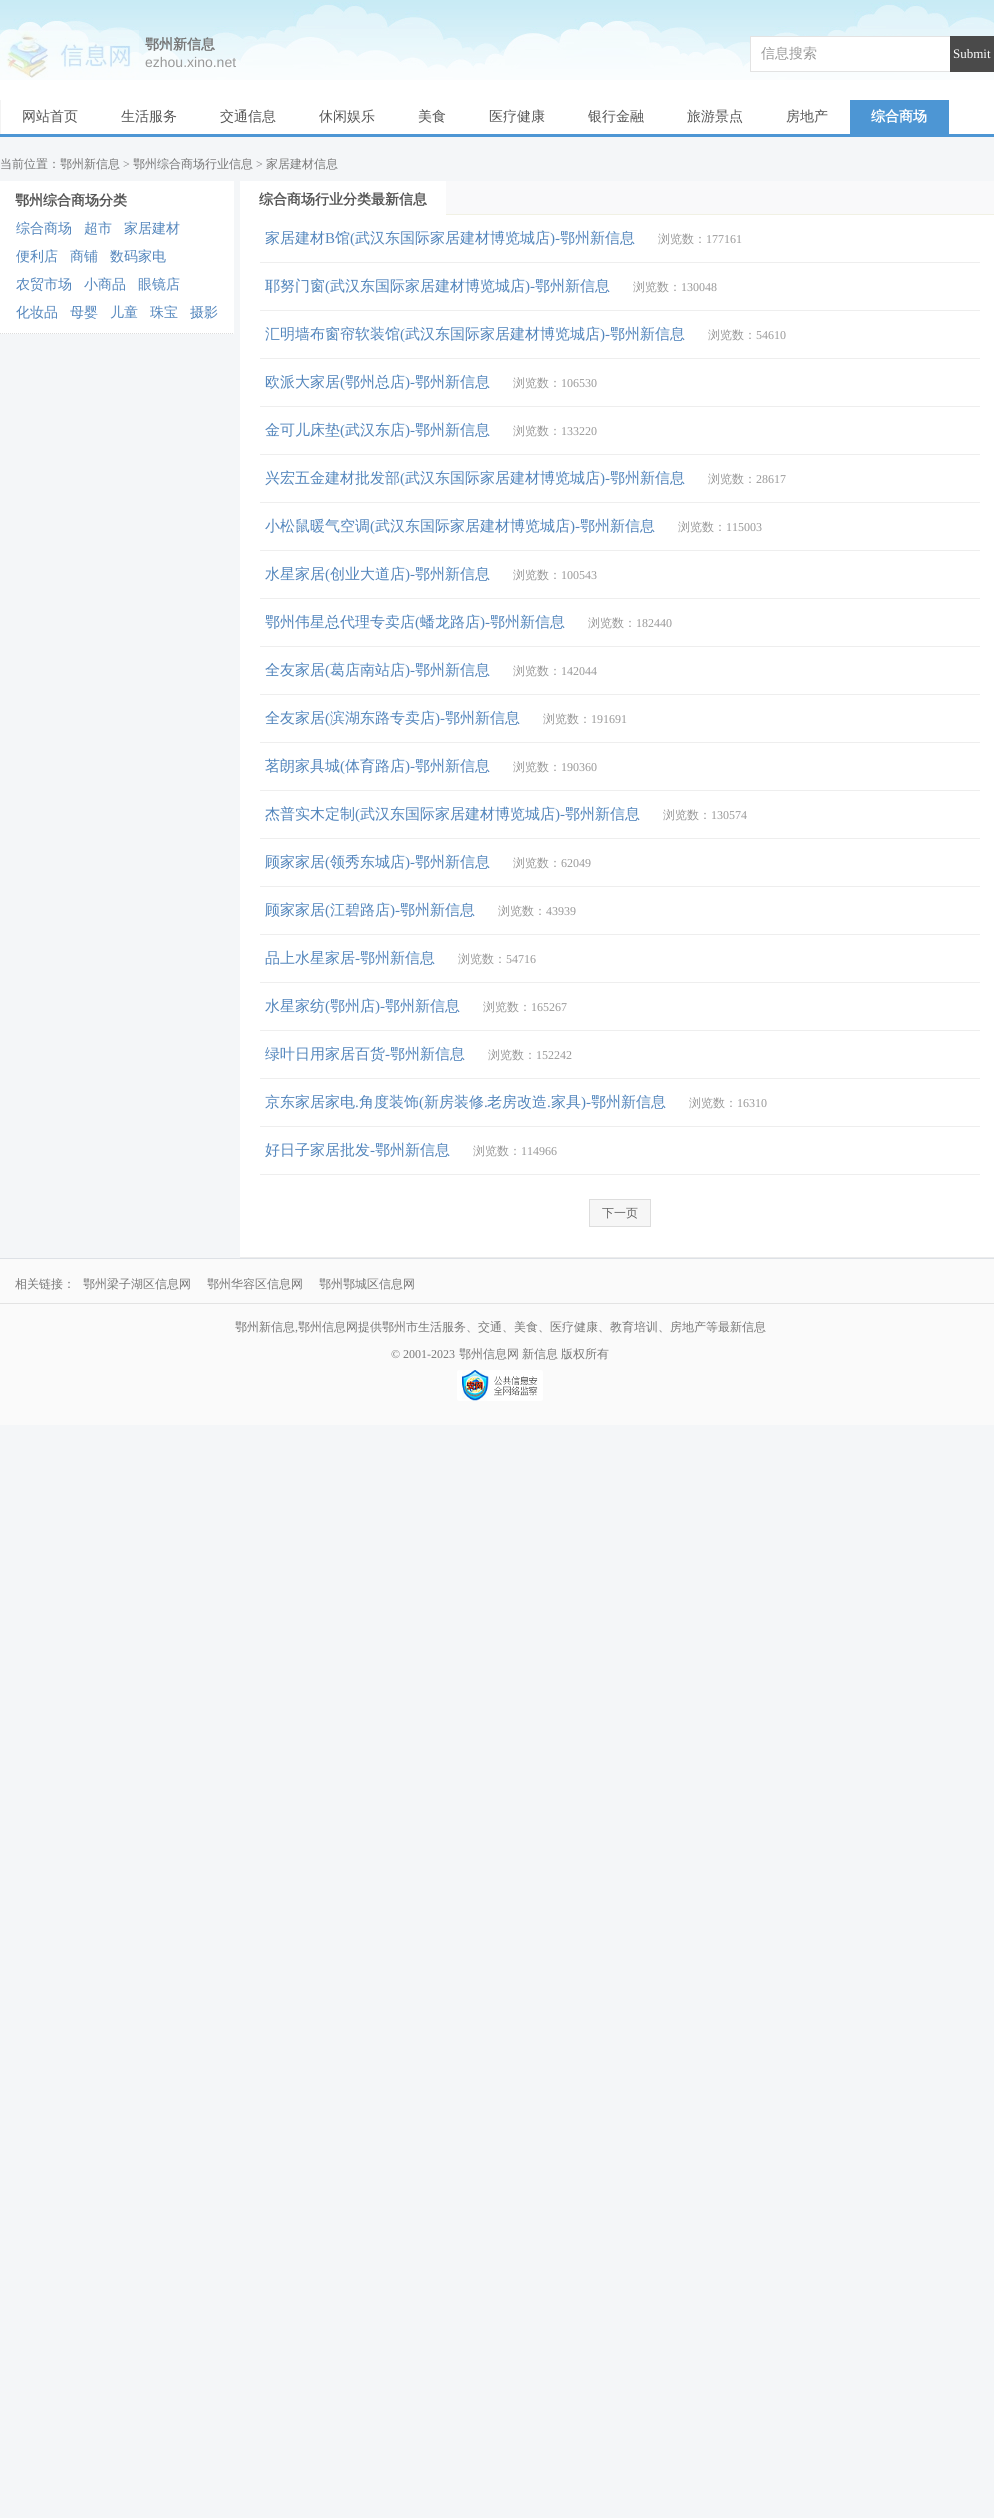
import math
import cairo


def paste(ctx, path, x, y, w, h):
	ctx.save()
	ctx.set_source_surface(cairo.ImageSurface.create_from_png(path), x, y)
	ctx.rectangle(x, y, w, h)
	ctx.fill()
	ctx.restore()

def draw(ctx):
	ctx.set_source_rgb(0.957, 0.961, 0.969)
	ctx.paint()
	ctx.set_source_rgb(1, 1, 1)
	ctx.rectangle(0, 80, 994, 20)
	ctx.fill()
	paste(ctx, 'media/1.png', 0, 0, 994, 80)
	paste(ctx, 'media/2.png', 0, 30, 139, 48)
	ctx.select_font_face('WenQuanYi Zen Hei', cairo.FONT_SLANT_NORMAL, cairo.FONT_WEIGHT_BOLD)
	ctx.set_font_size(14)
	ctx.set_source_rgb(0.467, 0.467, 0.467)
	ctx.move_to(145, 49)
	ctx.show_text('鄂州新信息')
	ctx.select_font_face('Liberation Sans')
	ctx.set_source_rgb(0.6, 0.6, 0.6)
	ctx.move_to(145, 67)
	ctx.show_text('ezhou.xino.net')
	ctx.set_source_rgb(1, 1, 1)
	ctx.rectangle(751, 37, 199, 34)
	ctx.fill()
	ctx.set_source_rgb(0.89, 0.89, 0.89)
	ctx.rectangle(750, 36, 201, 1)
	ctx.rectangle(750, 71, 201, 1)
	ctx.rectangle(750, 36, 1, 36)
	ctx.fill()
	ctx.select_font_face('WenQuanYi Zen Hei Medium')
	ctx.set_source_rgb(0.6, 0.6, 0.6)
	ctx.move_to(761, 58)
	ctx.show_text('信息搜索')
	ctx.set_source_rgb(0.29, 0.29, 0.29)
	ctx.rectangle(950, 36, 44, 36)
	ctx.fill()
	ctx.select_font_face('Liberation Serif')
	ctx.set_font_size(13)
	ctx.set_source_rgb(1, 1, 1)
	ctx.move_to(953, 58)
	ctx.show_text('Submit')
	ctx.rectangle(1, 100, 993, 34)
	ctx.fill()
	ctx.set_source_rgb(0.302, 0.588, 0.831)
	ctx.rectangle(0, 134, 994, 3)
	ctx.fill()
	ctx.set_source_rgb(0.953, 0.953, 0.953)
	ctx.rectangle(0, 100, 1, 34)
	ctx.fill()
	ctx.select_font_face('WenQuanYi Zen Hei Medium')
	ctx.set_font_size(14)
	ctx.set_source_rgb(0.333, 0.333, 0.333)
	for x, y, s in [
		(22, 121, '网站首页'),
		(121, 121, '生活服务'),
		(220, 121, '交通信息'),
		(319, 121, '休闲娱乐'),
		(418, 121, '美食'),
		(489, 121, '医疗健康'),
		(588, 121, '银行金融'),
		(687, 121, '旅游景点'),
		(786, 121, '房地产'),
	]:
		ctx.move_to(x, y)
		ctx.show_text(s)
	ctx.set_source_rgb(0.302, 0.588, 0.831)
	ctx.rectangle(850, 100, 99, 34)
	ctx.fill()
	ctx.select_font_face('WenQuanYi Zen Hei', cairo.FONT_SLANT_NORMAL, cairo.FONT_WEIGHT_BOLD)
	ctx.set_source_rgb(1, 1, 1)
	ctx.move_to(871, 121)
	ctx.show_text('综合商场')
	ctx.select_font_face('WenQuanYi Zen Hei Medium')
	ctx.set_font_size(12)
	ctx.set_source_rgb(0.467, 0.467, 0.467)
	ctx.move_to(0, 168)
	ctx.show_text('当前位置：鄂州新信息')
	ctx.select_font_face('Liberation Serif')
	ctx.move_to(123, 168)
	ctx.show_text('>')
	ctx.select_font_face('WenQuanYi Zen Hei Medium')
	ctx.move_to(133, 168)
	ctx.show_text('鄂州综合商场行业信息')
	ctx.select_font_face('Liberation Serif')
	ctx.move_to(256, 168)
	ctx.show_text('>')
	ctx.select_font_face('WenQuanYi Zen Hei Medium')
	ctx.move_to(266, 168)
	ctx.show_text('家居建材信息')
	ctx.set_source_rgb(1, 1, 1)
	ctx.rectangle(0, 181, 234, 153)
	ctx.fill()
	ctx.new_path()
	ctx.move_to(0, 333.5)
	ctx.line_to(234, 333.5)
	ctx.set_source_rgb(0.867, 0.867, 0.867)
	ctx.set_line_width(1)
	ctx.set_dash([1, 1])
	ctx.stroke()
	ctx.select_font_face('WenQuanYi Zen Hei', cairo.FONT_SLANT_NORMAL, cairo.FONT_WEIGHT_BOLD)
	ctx.set_font_size(14)
	ctx.set_source_rgb(0.333, 0.333, 0.333)
	ctx.move_to(15, 205)
	ctx.show_text('鄂州综合商场分类')
	ctx.select_font_face('WenQuanYi Zen Hei Medium')
	ctx.set_source_rgb(0.322, 0.522, 0.737)
	for x, y, s in [
		(16, 233, '综合商场'),
		(84, 233, '超市'),
		(124, 233, '家居建材'),
		(16, 261, '便利店'),
		(70, 261, '商铺'),
		(110, 261, '数码家电'),
		(16, 289, '农贸市场'),
		(84, 289, '小商品'),
		(138, 289, '眼镜店'),
		(16, 317, '化妆品'),
		(70, 317, '母婴'),
		(110, 317, '儿童'),
		(150, 317, '珠宝'),
		(190, 317, '摄影'),
	]:
		ctx.move_to(x, y)
		ctx.show_text(s)
	ctx.set_source_rgb(1, 1, 1)
	ctx.rectangle(240, 215, 754, 1042)
	ctx.fill()
	ctx.set_source_rgb(0.922, 0.922, 0.922)
	ctx.rectangle(240, 1257, 754, 1)
	ctx.fill()
	ctx.set_source_rgb(0.973, 0.976, 0.98)
	ctx.rectangle(446, 181, 548, 33)
	ctx.fill()
	ctx.set_source_rgb(0.945, 0.945, 0.894)
	ctx.rectangle(446, 214, 548, 1)
	ctx.fill()
	ctx.set_font_size(15)
	ctx.set_source_rgb(0.322, 0.522, 0.737)
	ctx.move_to(265, 243)
	ctx.show_text('家居建材')
	ctx.select_font_face('Liberation Serif')
	ctx.move_to(325, 243)
	ctx.show_text('B')
	ctx.select_font_face('WenQuanYi Zen Hei Medium')
	ctx.move_to(335, 243)
	ctx.show_text('馆')
	ctx.move_to(355, 243)
	ctx.show_text('武汉东国际家居建材博览城店')
	ctx.set_source_rgb(1, 1, 1)
	ctx.rectangle(240, 181, 206, 50)
	ctx.fill()
	ctx.select_font_face('WenQuanYi Zen Hei', cairo.FONT_SLANT_NORMAL, cairo.FONT_WEIGHT_BOLD)
	ctx.set_font_size(14)
	ctx.set_source_rgb(0.333, 0.333, 0.333)
	ctx.move_to(259, 204)
	ctx.show_text('综合商场行业分类最新信息')
	ctx.set_source_rgb(0.933, 0.933, 0.933)
	ctx.rectangle(260, 262, 720, 1)
	ctx.fill()
	ctx.select_font_face('Liberation Serif')
	ctx.set_font_size(15)
	ctx.set_source_rgb(0.322, 0.522, 0.737)
	ctx.move_to(350, 243)
	ctx.show_text('(')
	ctx.move_to(550, 243)
	ctx.show_text(')-')
	ctx.select_font_face('WenQuanYi Zen Hei Medium')
	ctx.move_to(560, 243)
	ctx.show_text('鄂州新信息')
	ctx.set_font_size(12)
	ctx.set_source_rgb(0.6, 0.6, 0.6)
	ctx.move_to(658, 243)
	ctx.show_text('浏览数：')
	ctx.select_font_face('Liberation Serif')
	ctx.move_to(706, 243)
	ctx.show_text('177161')
	ctx.set_source_rgb(0.933, 0.933, 0.933)
	ctx.rectangle(260, 310, 720, 1)
	ctx.fill()
	ctx.select_font_face('WenQuanYi Zen Hei Medium')
	ctx.set_font_size(15)
	ctx.set_source_rgb(0.322, 0.522, 0.737)
	ctx.move_to(265, 291)
	ctx.show_text('耶努门窗')
	ctx.select_font_face('Liberation Serif')
	ctx.move_to(325, 291)
	ctx.show_text('(')
	ctx.select_font_face('WenQuanYi Zen Hei Medium')
	ctx.move_to(330, 291)
	ctx.show_text('武汉东国际家居建材博览城店')
	ctx.select_font_face('Liberation Serif')
	ctx.move_to(525, 291)
	ctx.show_text(')-')
	ctx.select_font_face('WenQuanYi Zen Hei Medium')
	ctx.move_to(535, 291)
	ctx.show_text('鄂州新信息')
	ctx.set_font_size(12)
	ctx.set_source_rgb(0.6, 0.6, 0.6)
	ctx.move_to(633, 291)
	ctx.show_text('浏览数：')
	ctx.select_font_face('Liberation Serif')
	ctx.move_to(681, 291)
	ctx.show_text('130048')
	ctx.set_source_rgb(0.933, 0.933, 0.933)
	ctx.rectangle(260, 358, 720, 1)
	ctx.fill()
	ctx.select_font_face('WenQuanYi Zen Hei Medium')
	ctx.set_font_size(15)
	ctx.set_source_rgb(0.322, 0.522, 0.737)
	ctx.move_to(265, 339)
	ctx.show_text('汇明墙布窗帘软装馆')
	ctx.select_font_face('Liberation Serif')
	ctx.move_to(400, 339)
	ctx.show_text('(')
	ctx.select_font_face('WenQuanYi Zen Hei Medium')
	ctx.move_to(405, 339)
	ctx.show_text('武汉东国际家居建材博览城店')
	ctx.select_font_face('Liberation Serif')
	ctx.move_to(600, 339)
	ctx.show_text(')-')
	ctx.select_font_face('WenQuanYi Zen Hei Medium')
	ctx.move_to(610, 339)
	ctx.show_text('鄂州新信息')
	ctx.set_font_size(12)
	ctx.set_source_rgb(0.6, 0.6, 0.6)
	ctx.move_to(708, 339)
	ctx.show_text('浏览数：')
	ctx.select_font_face('Liberation Serif')
	ctx.move_to(756, 339)
	ctx.show_text('54610')
	ctx.set_source_rgb(0.933, 0.933, 0.933)
	ctx.rectangle(260, 406, 720, 1)
	ctx.fill()
	ctx.select_font_face('WenQuanYi Zen Hei Medium')
	ctx.set_font_size(15)
	ctx.set_source_rgb(0.322, 0.522, 0.737)
	ctx.move_to(265, 387)
	ctx.show_text('欧派大家居')
	ctx.select_font_face('Liberation Serif')
	ctx.move_to(340, 387)
	ctx.show_text('(')
	ctx.select_font_face('WenQuanYi Zen Hei Medium')
	ctx.move_to(345, 387)
	ctx.show_text('鄂州总店')
	ctx.select_font_face('Liberation Serif')
	ctx.move_to(405, 387)
	ctx.show_text(')-')
	ctx.select_font_face('WenQuanYi Zen Hei Medium')
	ctx.move_to(415, 387)
	ctx.show_text('鄂州新信息')
	ctx.set_font_size(12)
	ctx.set_source_rgb(0.6, 0.6, 0.6)
	ctx.move_to(513, 387)
	ctx.show_text('浏览数：')
	ctx.select_font_face('Liberation Serif')
	ctx.move_to(561, 387)
	ctx.show_text('106530')
	ctx.set_source_rgb(0.933, 0.933, 0.933)
	ctx.rectangle(260, 454, 720, 1)
	ctx.fill()
	ctx.select_font_face('WenQuanYi Zen Hei Medium')
	ctx.set_font_size(15)
	ctx.set_source_rgb(0.322, 0.522, 0.737)
	ctx.move_to(265, 435)
	ctx.show_text('金可儿床垫')
	ctx.select_font_face('Liberation Serif')
	ctx.move_to(340, 435)
	ctx.show_text('(')
	ctx.select_font_face('WenQuanYi Zen Hei Medium')
	ctx.move_to(345, 435)
	ctx.show_text('武汉东店')
	ctx.select_font_face('Liberation Serif')
	ctx.move_to(405, 435)
	ctx.show_text(')-')
	ctx.select_font_face('WenQuanYi Zen Hei Medium')
	ctx.move_to(415, 435)
	ctx.show_text('鄂州新信息')
	ctx.set_font_size(12)
	ctx.set_source_rgb(0.6, 0.6, 0.6)
	ctx.move_to(513, 435)
	ctx.show_text('浏览数：')
	ctx.select_font_face('Liberation Serif')
	ctx.move_to(561, 435)
	ctx.show_text('133220')
	ctx.set_source_rgb(0.933, 0.933, 0.933)
	ctx.rectangle(260, 502, 720, 1)
	ctx.fill()
	ctx.select_font_face('WenQuanYi Zen Hei Medium')
	ctx.set_font_size(15)
	ctx.set_source_rgb(0.322, 0.522, 0.737)
	ctx.move_to(265, 483)
	ctx.show_text('兴宏五金建材批发部')
	ctx.select_font_face('Liberation Serif')
	ctx.move_to(400, 483)
	ctx.show_text('(')
	ctx.select_font_face('WenQuanYi Zen Hei Medium')
	ctx.move_to(405, 483)
	ctx.show_text('武汉东国际家居建材博览城店')
	ctx.select_font_face('Liberation Serif')
	ctx.move_to(600, 483)
	ctx.show_text(')-')
	ctx.select_font_face('WenQuanYi Zen Hei Medium')
	ctx.move_to(610, 483)
	ctx.show_text('鄂州新信息')
	ctx.set_font_size(12)
	ctx.set_source_rgb(0.6, 0.6, 0.6)
	ctx.move_to(708, 483)
	ctx.show_text('浏览数：')
	ctx.select_font_face('Liberation Serif')
	ctx.move_to(756, 483)
	ctx.show_text('28617')
	ctx.set_source_rgb(0.933, 0.933, 0.933)
	ctx.rectangle(260, 550, 720, 1)
	ctx.fill()
	ctx.select_font_face('WenQuanYi Zen Hei Medium')
	ctx.set_font_size(15)
	ctx.set_source_rgb(0.322, 0.522, 0.737)
	ctx.move_to(265, 531)
	ctx.show_text('小松鼠暖气空调')
	ctx.select_font_face('Liberation Serif')
	ctx.move_to(370, 531)
	ctx.show_text('(')
	ctx.select_font_face('WenQuanYi Zen Hei Medium')
	ctx.move_to(375, 531)
	ctx.show_text('武汉东国际家居建材博览城店')
	ctx.select_font_face('Liberation Serif')
	ctx.move_to(570, 531)
	ctx.show_text(')-')
	ctx.select_font_face('WenQuanYi Zen Hei Medium')
	ctx.move_to(580, 531)
	ctx.show_text('鄂州新信息')
	ctx.set_font_size(12)
	ctx.set_source_rgb(0.6, 0.6, 0.6)
	ctx.move_to(678, 531)
	ctx.show_text('浏览数：')
	ctx.select_font_face('Liberation Serif')
	ctx.move_to(726, 531)
	ctx.show_text('115003')
	ctx.set_source_rgb(0.933, 0.933, 0.933)
	ctx.rectangle(260, 598, 720, 1)
	ctx.fill()
	ctx.select_font_face('WenQuanYi Zen Hei Medium')
	ctx.set_font_size(15)
	ctx.set_source_rgb(0.322, 0.522, 0.737)
	ctx.move_to(265, 579)
	ctx.show_text('水星家居')
	ctx.select_font_face('Liberation Serif')
	ctx.move_to(325, 579)
	ctx.show_text('(')
	ctx.select_font_face('WenQuanYi Zen Hei Medium')
	ctx.move_to(330, 579)
	ctx.show_text('创业大道店')
	ctx.select_font_face('Liberation Serif')
	ctx.move_to(405, 579)
	ctx.show_text(')-')
	ctx.select_font_face('WenQuanYi Zen Hei Medium')
	ctx.move_to(415, 579)
	ctx.show_text('鄂州新信息')
	ctx.set_font_size(12)
	ctx.set_source_rgb(0.6, 0.6, 0.6)
	ctx.move_to(513, 579)
	ctx.show_text('浏览数：')
	ctx.select_font_face('Liberation Serif')
	ctx.move_to(561, 579)
	ctx.show_text('100543')
	ctx.set_source_rgb(0.933, 0.933, 0.933)
	ctx.rectangle(260, 646, 720, 1)
	ctx.fill()
	ctx.select_font_face('WenQuanYi Zen Hei Medium')
	ctx.set_font_size(15)
	ctx.set_source_rgb(0.322, 0.522, 0.737)
	ctx.move_to(265, 627)
	ctx.show_text('鄂州伟星总代理专卖店')
	ctx.select_font_face('Liberation Serif')
	ctx.move_to(415, 627)
	ctx.show_text('(')
	ctx.select_font_face('WenQuanYi Zen Hei Medium')
	ctx.move_to(420, 627)
	ctx.show_text('蟠龙路店')
	ctx.select_font_face('Liberation Serif')
	ctx.move_to(480, 627)
	ctx.show_text(')-')
	ctx.select_font_face('WenQuanYi Zen Hei Medium')
	ctx.move_to(490, 627)
	ctx.show_text('鄂州新信息')
	ctx.set_font_size(12)
	ctx.set_source_rgb(0.6, 0.6, 0.6)
	ctx.move_to(588, 627)
	ctx.show_text('浏览数：')
	ctx.select_font_face('Liberation Serif')
	ctx.move_to(636, 627)
	ctx.show_text('182440')
	ctx.set_source_rgb(0.933, 0.933, 0.933)
	ctx.rectangle(260, 694, 720, 1)
	ctx.fill()
	ctx.select_font_face('WenQuanYi Zen Hei Medium')
	ctx.set_font_size(15)
	ctx.set_source_rgb(0.322, 0.522, 0.737)
	ctx.move_to(265, 675)
	ctx.show_text('全友家居')
	ctx.select_font_face('Liberation Serif')
	ctx.move_to(325, 675)
	ctx.show_text('(')
	ctx.select_font_face('WenQuanYi Zen Hei Medium')
	ctx.move_to(330, 675)
	ctx.show_text('葛店南站店')
	ctx.select_font_face('Liberation Serif')
	ctx.move_to(405, 675)
	ctx.show_text(')-')
	ctx.select_font_face('WenQuanYi Zen Hei Medium')
	ctx.move_to(415, 675)
	ctx.show_text('鄂州新信息')
	ctx.set_font_size(12)
	ctx.set_source_rgb(0.6, 0.6, 0.6)
	ctx.move_to(513, 675)
	ctx.show_text('浏览数：')
	ctx.select_font_face('Liberation Serif')
	ctx.move_to(561, 675)
	ctx.show_text('142044')
	ctx.set_source_rgb(0.933, 0.933, 0.933)
	ctx.rectangle(260, 742, 720, 1)
	ctx.fill()
	ctx.select_font_face('WenQuanYi Zen Hei Medium')
	ctx.set_font_size(15)
	ctx.set_source_rgb(0.322, 0.522, 0.737)
	ctx.move_to(265, 723)
	ctx.show_text('全友家居')
	ctx.select_font_face('Liberation Serif')
	ctx.move_to(325, 723)
	ctx.show_text('(')
	ctx.select_font_face('WenQuanYi Zen Hei Medium')
	ctx.move_to(330, 723)
	ctx.show_text('滨湖东路专卖店')
	ctx.select_font_face('Liberation Serif')
	ctx.move_to(435, 723)
	ctx.show_text(')-')
	ctx.select_font_face('WenQuanYi Zen Hei Medium')
	ctx.move_to(445, 723)
	ctx.show_text('鄂州新信息')
	ctx.set_font_size(12)
	ctx.set_source_rgb(0.6, 0.6, 0.6)
	ctx.move_to(543, 723)
	ctx.show_text('浏览数：')
	ctx.select_font_face('Liberation Serif')
	ctx.move_to(591, 723)
	ctx.show_text('191691')
	ctx.set_source_rgb(0.933, 0.933, 0.933)
	ctx.rectangle(260, 790, 720, 1)
	ctx.fill()
	ctx.select_font_face('WenQuanYi Zen Hei Medium')
	ctx.set_font_size(15)
	ctx.set_source_rgb(0.322, 0.522, 0.737)
	ctx.move_to(265, 771)
	ctx.show_text('茗朗家具城')
	ctx.select_font_face('Liberation Serif')
	ctx.move_to(340, 771)
	ctx.show_text('(')
	ctx.select_font_face('WenQuanYi Zen Hei Medium')
	ctx.move_to(345, 771)
	ctx.show_text('体育路店')
	ctx.select_font_face('Liberation Serif')
	ctx.move_to(405, 771)
	ctx.show_text(')-')
	ctx.select_font_face('WenQuanYi Zen Hei Medium')
	ctx.move_to(415, 771)
	ctx.show_text('鄂州新信息')
	ctx.set_font_size(12)
	ctx.set_source_rgb(0.6, 0.6, 0.6)
	ctx.move_to(513, 771)
	ctx.show_text('浏览数：')
	ctx.select_font_face('Liberation Serif')
	ctx.move_to(561, 771)
	ctx.show_text('190360')
	ctx.set_source_rgb(0.933, 0.933, 0.933)
	ctx.rectangle(260, 838, 720, 1)
	ctx.fill()
	ctx.select_font_face('WenQuanYi Zen Hei Medium')
	ctx.set_font_size(15)
	ctx.set_source_rgb(0.322, 0.522, 0.737)
	ctx.move_to(265, 819)
	ctx.show_text('杰普实木定制')
	ctx.select_font_face('Liberation Serif')
	ctx.move_to(355, 819)
	ctx.show_text('(')
	ctx.select_font_face('WenQuanYi Zen Hei Medium')
	ctx.move_to(360, 819)
	ctx.show_text('武汉东国际家居建材博览城店')
	ctx.select_font_face('Liberation Serif')
	ctx.move_to(555, 819)
	ctx.show_text(')-')
	ctx.select_font_face('WenQuanYi Zen Hei Medium')
	ctx.move_to(565, 819)
	ctx.show_text('鄂州新信息')
	ctx.set_font_size(12)
	ctx.set_source_rgb(0.6, 0.6, 0.6)
	ctx.move_to(663, 819)
	ctx.show_text('浏览数：')
	ctx.select_font_face('Liberation Serif')
	ctx.move_to(711, 819)
	ctx.show_text('130574')
	ctx.set_source_rgb(0.933, 0.933, 0.933)
	ctx.rectangle(260, 886, 720, 1)
	ctx.fill()
	ctx.select_font_face('WenQuanYi Zen Hei Medium')
	ctx.set_font_size(15)
	ctx.set_source_rgb(0.322, 0.522, 0.737)
	ctx.move_to(265, 867)
	ctx.show_text('顾家家居')
	ctx.select_font_face('Liberation Serif')
	ctx.move_to(325, 867)
	ctx.show_text('(')
	ctx.select_font_face('WenQuanYi Zen Hei Medium')
	ctx.move_to(330, 867)
	ctx.show_text('领秀东城店')
	ctx.select_font_face('Liberation Serif')
	ctx.move_to(405, 867)
	ctx.show_text(')-')
	ctx.select_font_face('WenQuanYi Zen Hei Medium')
	ctx.move_to(415, 867)
	ctx.show_text('鄂州新信息')
	ctx.set_font_size(12)
	ctx.set_source_rgb(0.6, 0.6, 0.6)
	ctx.move_to(513, 867)
	ctx.show_text('浏览数：')
	ctx.select_font_face('Liberation Serif')
	ctx.move_to(561, 867)
	ctx.show_text('62049')
	ctx.set_source_rgb(0.933, 0.933, 0.933)
	ctx.rectangle(260, 934, 720, 1)
	ctx.fill()
	ctx.select_font_face('WenQuanYi Zen Hei Medium')
	ctx.set_font_size(15)
	ctx.set_source_rgb(0.322, 0.522, 0.737)
	ctx.move_to(265, 915)
	ctx.show_text('顾家家居')
	ctx.select_font_face('Liberation Serif')
	ctx.move_to(325, 915)
	ctx.show_text('(')
	ctx.select_font_face('WenQuanYi Zen Hei Medium')
	ctx.move_to(330, 915)
	ctx.show_text('江碧路店')
	ctx.select_font_face('Liberation Serif')
	ctx.move_to(390, 915)
	ctx.show_text(')-')
	ctx.select_font_face('WenQuanYi Zen Hei Medium')
	ctx.move_to(400, 915)
	ctx.show_text('鄂州新信息')
	ctx.set_font_size(12)
	ctx.set_source_rgb(0.6, 0.6, 0.6)
	ctx.move_to(498, 915)
	ctx.show_text('浏览数：')
	ctx.select_font_face('Liberation Serif')
	ctx.move_to(546, 915)
	ctx.show_text('43939')
	ctx.set_source_rgb(0.933, 0.933, 0.933)
	ctx.rectangle(260, 982, 720, 1)
	ctx.fill()
	ctx.select_font_face('WenQuanYi Zen Hei Medium')
	ctx.set_font_size(15)
	ctx.set_source_rgb(0.322, 0.522, 0.737)
	ctx.move_to(265, 963)
	ctx.show_text('品上水星家居')
	ctx.select_font_face('Liberation Serif')
	ctx.move_to(355, 963)
	ctx.show_text('-')
	ctx.select_font_face('WenQuanYi Zen Hei Medium')
	ctx.move_to(360, 963)
	ctx.show_text('鄂州新信息')
	ctx.set_font_size(12)
	ctx.set_source_rgb(0.6, 0.6, 0.6)
	ctx.move_to(458, 963)
	ctx.show_text('浏览数：')
	ctx.select_font_face('Liberation Serif')
	ctx.move_to(506, 963)
	ctx.show_text('54716')
	ctx.set_source_rgb(0.933, 0.933, 0.933)
	ctx.rectangle(260, 1030, 720, 1)
	ctx.fill()
	ctx.select_font_face('WenQuanYi Zen Hei Medium')
	ctx.set_font_size(15)
	ctx.set_source_rgb(0.322, 0.522, 0.737)
	ctx.move_to(265, 1011)
	ctx.show_text('水星家纺')
	ctx.select_font_face('Liberation Serif')
	ctx.move_to(325, 1011)
	ctx.show_text('(')
	ctx.select_font_face('WenQuanYi Zen Hei Medium')
	ctx.move_to(330, 1011)
	ctx.show_text('鄂州店')
	ctx.select_font_face('Liberation Serif')
	ctx.move_to(375, 1011)
	ctx.show_text(')-')
	ctx.select_font_face('WenQuanYi Zen Hei Medium')
	ctx.move_to(385, 1011)
	ctx.show_text('鄂州新信息')
	ctx.set_font_size(12)
	ctx.set_source_rgb(0.6, 0.6, 0.6)
	ctx.move_to(483, 1011)
	ctx.show_text('浏览数：')
	ctx.select_font_face('Liberation Serif')
	ctx.move_to(531, 1011)
	ctx.show_text('165267')
	ctx.set_source_rgb(0.933, 0.933, 0.933)
	ctx.rectangle(260, 1078, 720, 1)
	ctx.fill()
	ctx.select_font_face('WenQuanYi Zen Hei Medium')
	ctx.set_font_size(15)
	ctx.set_source_rgb(0.322, 0.522, 0.737)
	ctx.move_to(265, 1059)
	ctx.show_text('绿叶日用家居百货')
	ctx.select_font_face('Liberation Serif')
	ctx.move_to(385, 1059)
	ctx.show_text('-')
	ctx.select_font_face('WenQuanYi Zen Hei Medium')
	ctx.move_to(390, 1059)
	ctx.show_text('鄂州新信息')
	ctx.set_font_size(12)
	ctx.set_source_rgb(0.6, 0.6, 0.6)
	ctx.move_to(488, 1059)
	ctx.show_text('浏览数：')
	ctx.select_font_face('Liberation Serif')
	ctx.move_to(536, 1059)
	ctx.show_text('152242')
	ctx.set_source_rgb(0.933, 0.933, 0.933)
	ctx.rectangle(260, 1126, 720, 1)
	ctx.fill()
	ctx.select_font_face('WenQuanYi Zen Hei Medium')
	ctx.set_font_size(15)
	ctx.set_source_rgb(0.322, 0.522, 0.737)
	ctx.move_to(265, 1107)
	ctx.show_text('京东家居家电')
	ctx.select_font_face('Liberation Serif')
	ctx.move_to(355, 1107)
	ctx.show_text('.')
	ctx.select_font_face('WenQuanYi Zen Hei Medium')
	ctx.move_to(359, 1107)
	ctx.show_text('角度装饰')
	ctx.select_font_face('Liberation Serif')
	ctx.move_to(419, 1107)
	ctx.show_text('(')
	ctx.select_font_face('WenQuanYi Zen Hei Medium')
	ctx.move_to(424, 1107)
	ctx.show_text('新房装修')
	ctx.select_font_face('Liberation Serif')
	ctx.move_to(484, 1107)
	ctx.show_text('.')
	ctx.select_font_face('WenQuanYi Zen Hei Medium')
	ctx.move_to(487, 1107)
	ctx.show_text('老房改造')
	ctx.select_font_face('Liberation Serif')
	ctx.move_to(547, 1107)
	ctx.show_text('.')
	ctx.select_font_face('WenQuanYi Zen Hei Medium')
	ctx.move_to(551, 1107)
	ctx.show_text('家具')
	ctx.select_font_face('Liberation Serif')
	ctx.move_to(581, 1107)
	ctx.show_text(')-')
	ctx.select_font_face('WenQuanYi Zen Hei Medium')
	ctx.move_to(591, 1107)
	ctx.show_text('鄂州新信息')
	ctx.set_font_size(12)
	ctx.set_source_rgb(0.6, 0.6, 0.6)
	ctx.move_to(689, 1107)
	ctx.show_text('浏览数：')
	ctx.select_font_face('Liberation Serif')
	ctx.move_to(737, 1107)
	ctx.show_text('16310')
	ctx.set_source_rgb(0.933, 0.933, 0.933)
	ctx.rectangle(260, 1174, 720, 1)
	ctx.fill()
	ctx.select_font_face('WenQuanYi Zen Hei Medium')
	ctx.set_font_size(15)
	ctx.set_source_rgb(0.322, 0.522, 0.737)
	ctx.move_to(265, 1155)
	ctx.show_text('好日子家居批发')
	ctx.select_font_face('Liberation Serif')
	ctx.move_to(370, 1155)
	ctx.show_text('-')
	ctx.select_font_face('WenQuanYi Zen Hei Medium')
	ctx.move_to(375, 1155)
	ctx.show_text('鄂州新信息')
	ctx.set_font_size(12)
	ctx.set_source_rgb(0.6, 0.6, 0.6)
	ctx.move_to(473, 1155)
	ctx.show_text('浏览数：')
	ctx.select_font_face('Liberation Serif')
	ctx.move_to(521, 1155)
	ctx.show_text('114966')
	ctx.set_source_rgb(0.961, 0.961, 0.961)
	ctx.rectangle(589.5, 1199.5, 61, 27)
	ctx.fill_preserve()
	ctx.set_source_rgb(0.867, 0.867, 0.867)
	ctx.set_dash([])
	ctx.stroke()
	ctx.select_font_face('WenQuanYi Zen Hei Medium')
	ctx.set_source_rgb(0.4, 0.4, 0.4)
	ctx.move_to(602, 1217)
	ctx.show_text('下一页')
	ctx.set_source_rgb(0.98, 0.98, 0.98)
	ctx.rectangle(0, 1259, 994, 166)
	ctx.fill()
	ctx.set_source_rgb(0.867, 0.882, 0.902)
	ctx.rectangle(0, 1258, 994, 1)
	ctx.fill()
	ctx.set_source_rgb(0.89, 0.89, 0.89)
	ctx.rectangle(0, 1303, 994, 1)
	ctx.fill()
	ctx.set_source_rgb(0.467, 0.467, 0.467)
	for x, y, s in [
		(15, 1288, '相关链接：'),
		(83, 1288, '鄂州梁子湖区信息网'),
		(207, 1288, '鄂州华容区信息网'),
		(319, 1288, '鄂州鄂城区信息网'),
		(235, 1331, '鄂州新信息'),
	]:
		ctx.move_to(x, y)
		ctx.show_text(s)
	ctx.select_font_face('Liberation Serif')
	ctx.move_to(295, 1331)
	ctx.show_text(',')
	ctx.select_font_face('WenQuanYi Zen Hei Medium')
	ctx.move_to(298, 1331)
	ctx.show_text('鄂州信息网提供鄂州市生活服务、交通、美食、医疗健康、教育培训、房地产等最新信息')
	ctx.select_font_face('Liberation Serif')
	ctx.move_to(391, 1358)
	ctx.show_text('© 2001-2023')
	ctx.select_font_face('WenQuanYi Zen Hei Medium')
	for x, y, s in [
		(459, 1358, '鄂州信息网'),
		(522, 1358, '新信息'),
		(561, 1358, '版权所有'),
	]:
		ctx.move_to(x, y)
		ctx.show_text(s)
	paste(ctx, 'media/3.png', 457, 1370, 86, 31)


surface = cairo.ImageSurface(cairo.FORMAT_RGB24, 994, 2518)
ctx = cairo.Context(surface)
options = cairo.FontOptions()
options.set_hint_metrics(cairo.HINT_METRICS_OFF)
options.set_hint_style(cairo.HINT_STYLE_NONE)
ctx.set_font_options(options)
ctx.set_miter_limit(4)
draw(ctx)
surface.write_to_png('image.png')
